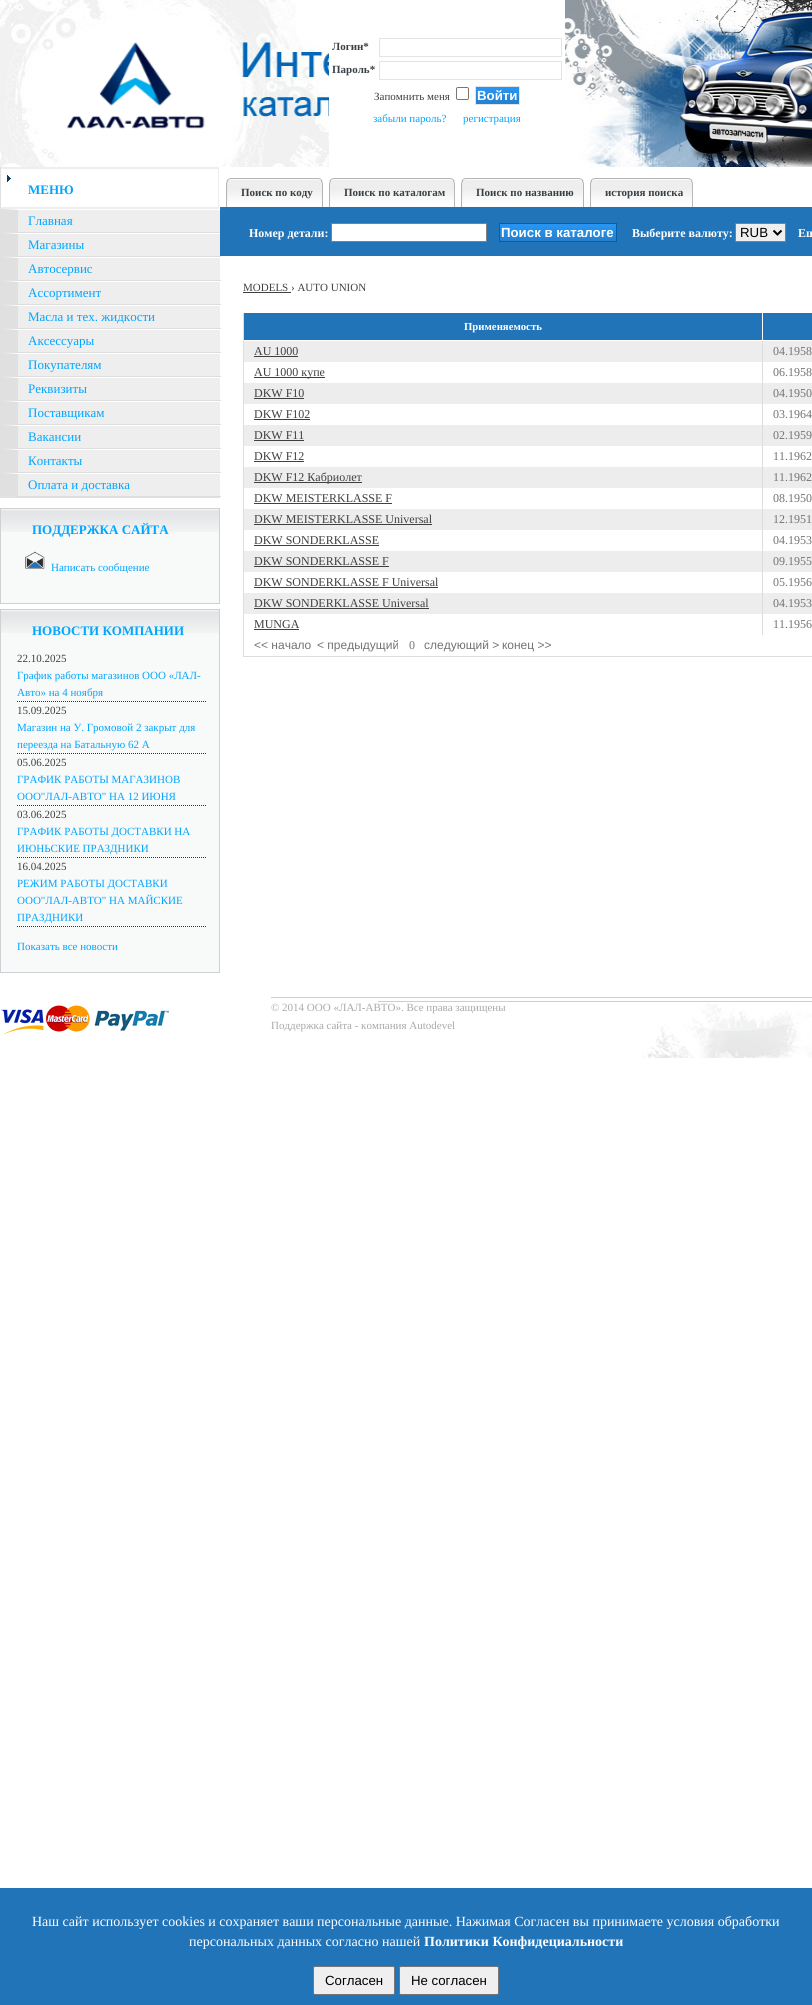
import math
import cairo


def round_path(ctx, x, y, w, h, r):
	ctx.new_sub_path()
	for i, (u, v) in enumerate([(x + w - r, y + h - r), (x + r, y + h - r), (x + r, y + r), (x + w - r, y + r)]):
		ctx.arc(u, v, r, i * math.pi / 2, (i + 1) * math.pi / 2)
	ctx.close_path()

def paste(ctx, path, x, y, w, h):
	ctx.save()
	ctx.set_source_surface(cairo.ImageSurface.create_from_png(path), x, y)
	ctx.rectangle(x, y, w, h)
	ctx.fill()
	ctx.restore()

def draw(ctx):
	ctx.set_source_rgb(1, 1, 1)
	ctx.paint()
	paste(ctx, 'media/1.png', 0, 0, 329, 167)
	ctx.select_font_face('Liberation Serif', cairo.FONT_SLANT_NORMAL, cairo.FONT_WEIGHT_BOLD)
	ctx.set_font_size(11)
	ctx.set_source_rgb(0.227, 0.255, 0.271)
	ctx.move_to(332, 50)
	ctx.show_text('Логин*')
	ctx.rectangle(379.5, 38.5, 182, 18)
	ctx.set_source_rgb(0.894, 0.894, 0.894)
	ctx.set_line_width(1)
	ctx.stroke()
	ctx.set_source_rgb(0.227, 0.255, 0.271)
	ctx.move_to(332, 73)
	ctx.show_text('Пароль*')
	ctx.rectangle(379.5, 61.5, 182, 18)
	ctx.set_source_rgb(0.894, 0.894, 0.894)
	ctx.stroke()
	ctx.select_font_face('Liberation Serif')
	ctx.set_source_rgb(0.227, 0.255, 0.271)
	ctx.move_to(374, 100)
	ctx.show_text('Запомнить меня')
	round_path(ctx, 456.5, 87.5, 12, 12, 1.5)
	ctx.set_source_rgb(0.463, 0.463, 0.463)
	ctx.stroke()
	paste(ctx, 'media/2.png', 476, 87, 43, 17)
	ctx.rectangle(475.5, 86.5, 44, 18)
	ctx.set_source_rgb(0.894, 0.894, 0.894)
	ctx.stroke()
	ctx.select_font_face('Liberation Sans', cairo.FONT_SLANT_NORMAL, cairo.FONT_WEIGHT_BOLD)
	ctx.set_font_size(13.25)
	ctx.set_source_rgb(1, 1, 1)
	ctx.move_to(477, 100)
	ctx.show_text('Войти')
	ctx.select_font_face('Liberation Serif')
	ctx.set_font_size(11)
	ctx.set_source_rgb(0, 0.651, 1)
	ctx.move_to(373, 122)
	ctx.show_text('забыли пароль?')
	ctx.move_to(463, 122)
	ctx.show_text('регистрация')
	paste(ctx, 'media/3.png', 565, 0, 247, 167)
	ctx.set_source_rgb(0.878, 0.878, 0.878)
	ctx.rectangle(0, 497, 220, 1)
	ctx.fill()
	ctx.rectangle(0, 167, 1, 331)
	ctx.fill()
	paste(ctx, 'media/4.png', 7, 175, 4, 7)
	ctx.set_source_rgb(0.933, 0.933, 0.933)
	ctx.rectangle(1, 167, 218, 2)
	ctx.rectangle(218, 167, 1, 42)
	ctx.rectangle(1, 207, 218, 2)
	ctx.fill()
	ctx.select_font_face('Liberation Serif', cairo.FONT_SLANT_NORMAL, cairo.FONT_WEIGHT_BOLD)
	ctx.set_font_size(13)
	ctx.set_source_rgb(0, 0.651, 1)
	ctx.move_to(28, 194)
	ctx.show_text('МЕНЮ')
	ctx.set_source_rgb(0.933, 0.933, 0.933)
	ctx.rectangle(1, 209, 219, 288)
	ctx.fill()
	ctx.set_source_rgb(1, 1, 1)
	ctx.new_path()
	ctx.move_to(1, 209)
	ctx.line_to(221, 209)
	ctx.line_to(221, 210)
	ctx.line_to(18, 210)
	ctx.close_path()
	ctx.fill()
	ctx.set_source_rgb(0.867, 0.867, 0.867)
	ctx.new_path()
	ctx.move_to(221, 233)
	ctx.line_to(1, 233)
	ctx.line_to(18, 232)
	ctx.line_to(221, 232)
	ctx.close_path()
	ctx.fill()
	ctx.set_source_rgb(0.878, 0.878, 0.878)
	ctx.new_path()
	ctx.move_to(1, 233)
	ctx.line_to(1, 209)
	ctx.line_to(18, 210)
	ctx.line_to(18, 232)
	ctx.close_path()
	ctx.fill()
	ctx.select_font_face('Liberation Serif')
	ctx.set_source_rgb(0, 0.651, 1)
	ctx.move_to(28, 225)
	ctx.show_text('Главная')
	ctx.set_source_rgb(1, 1, 1)
	ctx.new_path()
	ctx.move_to(1, 233)
	ctx.line_to(221, 233)
	ctx.line_to(221, 234)
	ctx.line_to(18, 234)
	ctx.close_path()
	ctx.fill()
	ctx.set_source_rgb(0.867, 0.867, 0.867)
	ctx.new_path()
	ctx.move_to(221, 257)
	ctx.line_to(1, 257)
	ctx.line_to(18, 256)
	ctx.line_to(221, 256)
	ctx.close_path()
	ctx.fill()
	ctx.set_source_rgb(0.878, 0.878, 0.878)
	ctx.new_path()
	ctx.move_to(1, 257)
	ctx.line_to(1, 233)
	ctx.line_to(18, 234)
	ctx.line_to(18, 256)
	ctx.close_path()
	ctx.fill()
	ctx.set_source_rgb(0, 0.651, 1)
	ctx.move_to(28, 249)
	ctx.show_text('Магазины')
	ctx.set_source_rgb(1, 1, 1)
	ctx.new_path()
	ctx.move_to(1, 257)
	ctx.line_to(221, 257)
	ctx.line_to(221, 258)
	ctx.line_to(18, 258)
	ctx.close_path()
	ctx.fill()
	ctx.set_source_rgb(0.867, 0.867, 0.867)
	ctx.new_path()
	ctx.move_to(221, 281)
	ctx.line_to(1, 281)
	ctx.line_to(18, 280)
	ctx.line_to(221, 280)
	ctx.close_path()
	ctx.fill()
	ctx.set_source_rgb(0.878, 0.878, 0.878)
	ctx.new_path()
	ctx.move_to(1, 281)
	ctx.line_to(1, 257)
	ctx.line_to(18, 258)
	ctx.line_to(18, 280)
	ctx.close_path()
	ctx.fill()
	ctx.set_source_rgb(0, 0.651, 1)
	ctx.move_to(28, 273)
	ctx.show_text('Автосервис')
	ctx.set_source_rgb(1, 1, 1)
	ctx.new_path()
	ctx.move_to(1, 281)
	ctx.line_to(221, 281)
	ctx.line_to(221, 282)
	ctx.line_to(18, 282)
	ctx.close_path()
	ctx.fill()
	ctx.set_source_rgb(0.867, 0.867, 0.867)
	ctx.new_path()
	ctx.move_to(221, 305)
	ctx.line_to(1, 305)
	ctx.line_to(18, 304)
	ctx.line_to(221, 304)
	ctx.close_path()
	ctx.fill()
	ctx.set_source_rgb(0.878, 0.878, 0.878)
	ctx.new_path()
	ctx.move_to(1, 305)
	ctx.line_to(1, 281)
	ctx.line_to(18, 282)
	ctx.line_to(18, 304)
	ctx.close_path()
	ctx.fill()
	ctx.set_source_rgb(0, 0.651, 1)
	ctx.move_to(28, 297)
	ctx.show_text('Ассортимент')
	ctx.set_source_rgb(1, 1, 1)
	ctx.new_path()
	ctx.move_to(1, 305)
	ctx.line_to(221, 305)
	ctx.line_to(221, 306)
	ctx.line_to(18, 306)
	ctx.close_path()
	ctx.fill()
	ctx.set_source_rgb(0.867, 0.867, 0.867)
	ctx.new_path()
	ctx.move_to(221, 329)
	ctx.line_to(1, 329)
	ctx.line_to(18, 328)
	ctx.line_to(221, 328)
	ctx.close_path()
	ctx.fill()
	ctx.set_source_rgb(0.878, 0.878, 0.878)
	ctx.new_path()
	ctx.move_to(1, 329)
	ctx.line_to(1, 305)
	ctx.line_to(18, 306)
	ctx.line_to(18, 328)
	ctx.close_path()
	ctx.fill()
	ctx.set_source_rgb(0, 0.651, 1)
	ctx.move_to(28, 321)
	ctx.show_text('Масла и тех. жидкости')
	ctx.set_source_rgb(1, 1, 1)
	ctx.new_path()
	ctx.move_to(1, 329)
	ctx.line_to(221, 329)
	ctx.line_to(221, 330)
	ctx.line_to(18, 330)
	ctx.close_path()
	ctx.fill()
	ctx.set_source_rgb(0.867, 0.867, 0.867)
	ctx.new_path()
	ctx.move_to(221, 353)
	ctx.line_to(1, 353)
	ctx.line_to(18, 352)
	ctx.line_to(221, 352)
	ctx.close_path()
	ctx.fill()
	ctx.set_source_rgb(0.878, 0.878, 0.878)
	ctx.new_path()
	ctx.move_to(1, 353)
	ctx.line_to(1, 329)
	ctx.line_to(18, 330)
	ctx.line_to(18, 352)
	ctx.close_path()
	ctx.fill()
	ctx.set_source_rgb(0, 0.651, 1)
	ctx.move_to(28, 345)
	ctx.show_text('Аксессуары')
	ctx.set_source_rgb(1, 1, 1)
	ctx.new_path()
	ctx.move_to(1, 353)
	ctx.line_to(221, 353)
	ctx.line_to(221, 354)
	ctx.line_to(18, 354)
	ctx.close_path()
	ctx.fill()
	ctx.set_source_rgb(0.867, 0.867, 0.867)
	ctx.new_path()
	ctx.move_to(221, 377)
	ctx.line_to(1, 377)
	ctx.line_to(18, 376)
	ctx.line_to(221, 376)
	ctx.close_path()
	ctx.fill()
	ctx.set_source_rgb(0.878, 0.878, 0.878)
	ctx.new_path()
	ctx.move_to(1, 377)
	ctx.line_to(1, 353)
	ctx.line_to(18, 354)
	ctx.line_to(18, 376)
	ctx.close_path()
	ctx.fill()
	ctx.set_source_rgb(0, 0.651, 1)
	ctx.move_to(28, 369)
	ctx.show_text('Покупателям')
	ctx.set_source_rgb(1, 1, 1)
	ctx.new_path()
	ctx.move_to(1, 377)
	ctx.line_to(221, 377)
	ctx.line_to(221, 378)
	ctx.line_to(18, 378)
	ctx.close_path()
	ctx.fill()
	ctx.set_source_rgb(0.867, 0.867, 0.867)
	ctx.new_path()
	ctx.move_to(221, 401)
	ctx.line_to(1, 401)
	ctx.line_to(18, 400)
	ctx.line_to(221, 400)
	ctx.close_path()
	ctx.fill()
	ctx.set_source_rgb(0.878, 0.878, 0.878)
	ctx.new_path()
	ctx.move_to(1, 401)
	ctx.line_to(1, 377)
	ctx.line_to(18, 378)
	ctx.line_to(18, 400)
	ctx.close_path()
	ctx.fill()
	ctx.set_source_rgb(0, 0.651, 1)
	ctx.move_to(28, 393)
	ctx.show_text('Реквизиты')
	ctx.set_source_rgb(1, 1, 1)
	ctx.new_path()
	ctx.move_to(1, 401)
	ctx.line_to(221, 401)
	ctx.line_to(221, 402)
	ctx.line_to(18, 402)
	ctx.close_path()
	ctx.fill()
	ctx.set_source_rgb(0.867, 0.867, 0.867)
	ctx.new_path()
	ctx.move_to(221, 425)
	ctx.line_to(1, 425)
	ctx.line_to(18, 424)
	ctx.line_to(221, 424)
	ctx.close_path()
	ctx.fill()
	ctx.set_source_rgb(0.878, 0.878, 0.878)
	ctx.new_path()
	ctx.move_to(1, 425)
	ctx.line_to(1, 401)
	ctx.line_to(18, 402)
	ctx.line_to(18, 424)
	ctx.close_path()
	ctx.fill()
	ctx.set_source_rgb(0, 0.651, 1)
	ctx.move_to(28, 417)
	ctx.show_text('Поставщикам')
	ctx.set_source_rgb(1, 1, 1)
	ctx.new_path()
	ctx.move_to(1, 425)
	ctx.line_to(221, 425)
	ctx.line_to(221, 426)
	ctx.line_to(18, 426)
	ctx.close_path()
	ctx.fill()
	ctx.set_source_rgb(0.867, 0.867, 0.867)
	ctx.new_path()
	ctx.move_to(221, 449)
	ctx.line_to(1, 449)
	ctx.line_to(18, 448)
	ctx.line_to(221, 448)
	ctx.close_path()
	ctx.fill()
	ctx.set_source_rgb(0.878, 0.878, 0.878)
	ctx.new_path()
	ctx.move_to(1, 449)
	ctx.line_to(1, 425)
	ctx.line_to(18, 426)
	ctx.line_to(18, 448)
	ctx.close_path()
	ctx.fill()
	ctx.set_source_rgb(0, 0.651, 1)
	ctx.move_to(28, 441)
	ctx.show_text('Вакансии')
	ctx.set_source_rgb(1, 1, 1)
	ctx.new_path()
	ctx.move_to(1, 449)
	ctx.line_to(221, 449)
	ctx.line_to(221, 450)
	ctx.line_to(18, 450)
	ctx.close_path()
	ctx.fill()
	ctx.set_source_rgb(0.867, 0.867, 0.867)
	ctx.new_path()
	ctx.move_to(221, 473)
	ctx.line_to(1, 473)
	ctx.line_to(18, 472)
	ctx.line_to(221, 472)
	ctx.close_path()
	ctx.fill()
	ctx.set_source_rgb(0.878, 0.878, 0.878)
	ctx.new_path()
	ctx.move_to(1, 473)
	ctx.line_to(1, 449)
	ctx.line_to(18, 450)
	ctx.line_to(18, 472)
	ctx.close_path()
	ctx.fill()
	ctx.set_source_rgb(0, 0.651, 1)
	ctx.move_to(28, 465)
	ctx.show_text('Контакты')
	ctx.set_source_rgb(1, 1, 1)
	ctx.new_path()
	ctx.move_to(1, 473)
	ctx.line_to(221, 473)
	ctx.line_to(221, 474)
	ctx.line_to(18, 474)
	ctx.close_path()
	ctx.fill()
	ctx.set_source_rgb(0.867, 0.867, 0.867)
	ctx.new_path()
	ctx.move_to(221, 497)
	ctx.line_to(1, 497)
	ctx.line_to(18, 496)
	ctx.line_to(221, 496)
	ctx.close_path()
	ctx.fill()
	ctx.set_source_rgb(0.878, 0.878, 0.878)
	ctx.new_path()
	ctx.move_to(1, 497)
	ctx.line_to(1, 473)
	ctx.line_to(18, 474)
	ctx.line_to(18, 496)
	ctx.close_path()
	ctx.fill()
	ctx.set_source_rgb(0, 0.651, 1)
	ctx.move_to(28, 489)
	ctx.show_text('Оплата и доставка')
	ctx.set_source_rgb(0.969, 0.973, 0.973)
	ctx.rectangle(1, 532, 218, 71)
	ctx.fill()
	paste(ctx, 'media/5.png', 1, 509, 218, 23)
	ctx.rectangle(0.5, 508.5, 219, 95)
	ctx.set_source_rgb(0.808, 0.82, 0.827)
	ctx.stroke()
	ctx.select_font_face('Liberation Serif', cairo.FONT_SLANT_NORMAL, cairo.FONT_WEIGHT_BOLD)
	ctx.set_source_rgb(0, 0.651, 1)
	ctx.move_to(32, 534)
	ctx.show_text('ПОДДЕРЖКА САЙТА')
	paste(ctx, 'media/6.png', 25, 551, 20, 18)
	ctx.select_font_face('Liberation Serif')
	ctx.set_font_size(11)
	ctx.move_to(51, 571)
	ctx.show_text('Написать сообщение')
	ctx.set_source_rgb(0.969, 0.973, 0.973)
	ctx.rectangle(1, 633, 218, 339)
	ctx.fill()
	paste(ctx, 'media/5.png', 1, 610, 218, 23)
	ctx.rectangle(0.5, 609.5, 219, 363)
	ctx.set_source_rgb(0.808, 0.82, 0.827)
	ctx.stroke()
	ctx.select_font_face('Liberation Serif', cairo.FONT_SLANT_NORMAL, cairo.FONT_WEIGHT_BOLD)
	ctx.set_font_size(13)
	ctx.set_source_rgb(0, 0.651, 1)
	ctx.move_to(32, 635)
	ctx.show_text('НОВОСТИ КОМПАНИИ')
	ctx.new_path()
	ctx.move_to(17, 701.5)
	ctx.line_to(207, 701.5)
	ctx.set_source_rgb(0.2, 0.2, 0.2)
	ctx.set_dash([1, 1])
	ctx.stroke()
	ctx.select_font_face('Liberation Serif')
	ctx.set_font_size(11)
	ctx.set_source_rgb(0.227, 0.255, 0.271)
	ctx.move_to(17, 662)
	ctx.show_text('22.10.2025')
	ctx.set_source_rgb(0, 0.651, 1)
	ctx.move_to(17, 679)
	ctx.show_text('График работы магазинов ООО «ЛАЛ-')
	ctx.move_to(17, 696)
	ctx.show_text('Авто» на 4 ноября')
	ctx.new_path()
	ctx.move_to(17, 753.5)
	ctx.line_to(207, 753.5)
	ctx.set_source_rgb(0.2, 0.2, 0.2)
	ctx.stroke()
	ctx.set_source_rgb(0.227, 0.255, 0.271)
	ctx.move_to(17, 714)
	ctx.show_text('15.09.2025')
	ctx.set_source_rgb(0, 0.651, 1)
	ctx.move_to(17, 731)
	ctx.show_text('Магазин на У. Громовой 2 закрыт для')
	ctx.move_to(17, 748)
	ctx.show_text('переезда на Батальную 62 А')
	ctx.new_path()
	ctx.move_to(17, 805.5)
	ctx.line_to(207, 805.5)
	ctx.set_source_rgb(0.2, 0.2, 0.2)
	ctx.stroke()
	ctx.set_source_rgb(0.227, 0.255, 0.271)
	ctx.move_to(17, 766)
	ctx.show_text('05.06.2025')
	ctx.set_source_rgb(0, 0.651, 1)
	ctx.move_to(17, 783)
	ctx.show_text('ГРАФИК РАБОТЫ МАГАЗИНОВ')
	ctx.move_to(17, 800)
	ctx.show_text('ООО"ЛАЛ-АВТО" НА 12 ИЮНЯ')
	ctx.new_path()
	ctx.move_to(17, 857.5)
	ctx.line_to(207, 857.5)
	ctx.set_source_rgb(0.2, 0.2, 0.2)
	ctx.stroke()
	ctx.set_source_rgb(0.227, 0.255, 0.271)
	ctx.move_to(17, 818)
	ctx.show_text('03.06.2025')
	ctx.set_source_rgb(0, 0.651, 1)
	ctx.move_to(17, 835)
	ctx.show_text('ГРАФИК РАБОТЫ ДОСТАВКИ НА')
	ctx.move_to(17, 852)
	ctx.show_text('ИЮНЬСКИЕ ПРАЗДНИКИ')
	ctx.new_path()
	ctx.move_to(17, 926.5)
	ctx.line_to(207, 926.5)
	ctx.set_source_rgb(0.2, 0.2, 0.2)
	ctx.stroke()
	ctx.set_source_rgb(0.227, 0.255, 0.271)
	ctx.move_to(17, 870)
	ctx.show_text('16.04.2025')
	ctx.set_source_rgb(0, 0.651, 1)
	for x, y, s in [
		(17, 887, 'РЕЖИМ РАБОТЫ ДОСТАВКИ'),
		(17, 904, 'ООО"ЛАЛ-АВТО" НА МАЙСКИЕ'),
		(17, 921, 'ПРАЗДНИКИ'),
		(17, 950, 'Показать все новости'),
	]:
		ctx.move_to(x, y)
		ctx.show_text(s)
	paste(ctx, 'media/7.png', 226, 178, 92, 29)
	paste(ctx, 'media/8.png', 318, 178, 5, 29)
	ctx.select_font_face('Liberation Serif', cairo.FONT_SLANT_NORMAL, cairo.FONT_WEIGHT_BOLD)
	ctx.set_source_rgb(0.227, 0.255, 0.271)
	ctx.move_to(241, 196)
	ctx.show_text('Поиск по коду')
	paste(ctx, 'media/9.png', 329, 178, 121, 29)
	paste(ctx, 'media/10.png', 450, 178, 5, 29)
	ctx.move_to(344, 196)
	ctx.show_text('Поиск по каталогам')
	paste(ctx, 'media/11.png', 461, 178, 118, 29)
	paste(ctx, 'media/8.png', 579, 178, 5, 29)
	ctx.move_to(476, 196)
	ctx.show_text('Поиск по названию')
	paste(ctx, 'media/12.png', 590, 178, 98, 29)
	paste(ctx, 'media/10.png', 688, 178, 5, 29)
	ctx.move_to(605, 196)
	ctx.show_text('история поиска')
	ctx.set_source_rgb(0.133, 0.455, 0.725)
	ctx.rectangle(220, 207, 592, 49)
	ctx.fill()
	ctx.set_font_size(12)
	ctx.set_source_rgb(1, 1, 1)
	ctx.move_to(249, 237)
	ctx.show_text('Номер детали:')
	ctx.rectangle(331.5, 223.5, 155, 18)
	ctx.fill_preserve()
	ctx.set_source_rgb(0.502, 0.502, 0.502)
	ctx.set_dash([])
	ctx.stroke()
	paste(ctx, 'media/13.png', 500, 224, 116, 17)
	ctx.rectangle(499.5, 223.5, 117, 18)
	ctx.set_source_rgb(0, 0.384, 0.639)
	ctx.stroke()
	ctx.select_font_face('Liberation Sans', cairo.FONT_SLANT_NORMAL, cairo.FONT_WEIGHT_BOLD)
	ctx.set_font_size(13.25)
	ctx.set_source_rgb(1, 1, 1)
	ctx.move_to(501, 237)
	ctx.show_text('Поиск в каталоге')
	ctx.select_font_face('Liberation Serif', cairo.FONT_SLANT_NORMAL, cairo.FONT_WEIGHT_BOLD)
	ctx.set_font_size(12)
	ctx.move_to(632, 237)
	ctx.show_text('Выберите валюту:')
	ctx.set_source_rgb(0.937, 0.937, 0.937)
	ctx.rectangle(735.5, 223.5, 50, 18)
	ctx.fill_preserve()
	ctx.set_source_rgb(0.502, 0.502, 0.502)
	ctx.stroke()
	ctx.new_path()
	ctx.move_to(773.5, 230.5)
	ctx.line_to(777.5, 234.5)
	ctx.line_to(781.5, 230.5)
	ctx.set_source_rgb(0, 0, 0)
	ctx.set_line_width(2)
	ctx.stroke()
	ctx.select_font_face('Liberation Sans')
	ctx.set_font_size(13.25)
	ctx.move_to(740, 237)
	ctx.show_text('RUB')
	ctx.select_font_face('Liberation Serif', cairo.FONT_SLANT_NORMAL, cairo.FONT_WEIGHT_BOLD)
	ctx.set_font_size(12)
	ctx.set_source_rgb(1, 1, 1)
	ctx.move_to(798, 237)
	ctx.show_text('Ещ')
	ctx.select_font_face('Liberation Serif')
	ctx.set_font_size(11)
	ctx.set_source_rgb(0.251, 0.251, 0.251)
	ctx.move_to(243, 291)
	ctx.show_text('MODELS')
	ctx.rectangle(243, 292, 48, 1)
	ctx.fill()
	ctx.set_source_rgb(0.227, 0.255, 0.271)
	ctx.move_to(291, 291)
	ctx.show_text('› AUTO UNION')
	ctx.set_source_rgb(0.867, 0.867, 0.867)
	ctx.rectangle(243, 656, 569, 1)
	ctx.rectangle(243, 313, 1, 344)
	ctx.fill()
	ctx.set_source_rgb(0.133, 0.455, 0.725)
	ctx.rectangle(244, 313, 518, 27)
	ctx.fill()
	ctx.select_font_face('Liberation Serif', cairo.FONT_SLANT_NORMAL, cairo.FONT_WEIGHT_BOLD)
	ctx.set_font_size(10.75)
	ctx.set_source_rgb(1, 1, 1)
	ctx.move_to(464, 330)
	ctx.show_text('Применяемость')
	ctx.set_source_rgb(0.133, 0.455, 0.725)
	ctx.rectangle(763, 313, 49, 27)
	ctx.fill()
	ctx.set_source_rgb(0.929, 0.929, 0.929)
	ctx.rectangle(244, 341, 568, 21)
	ctx.fill()
	ctx.set_source_rgb(0.867, 0.867, 0.867)
	ctx.rectangle(762, 341, 1, 42)
	ctx.fill()
	ctx.select_font_face('Liberation Serif')
	ctx.set_font_size(12)
	ctx.set_source_rgb(0.251, 0.251, 0.251)
	ctx.move_to(254, 355)
	ctx.show_text('AU 1000')
	ctx.rectangle(254, 356, 44, 1)
	ctx.fill()
	ctx.set_source_rgb(0.451, 0.451, 0.451)
	ctx.move_to(773, 355)
	ctx.show_text('04.1958')
	ctx.set_source_rgb(0.251, 0.251, 0.251)
	ctx.rectangle(254, 377, 71, 1)
	ctx.fill()
	ctx.move_to(254, 376)
	ctx.show_text('AU 1000 купе')
	ctx.set_source_rgb(0.451, 0.451, 0.451)
	ctx.move_to(773, 376)
	ctx.show_text('06.1958')
	ctx.set_source_rgb(0.929, 0.929, 0.929)
	ctx.rectangle(244, 383, 568, 21)
	ctx.fill()
	ctx.set_source_rgb(0.867, 0.867, 0.867)
	ctx.rectangle(762, 383, 1, 42)
	ctx.fill()
	ctx.set_source_rgb(0.251, 0.251, 0.251)
	ctx.move_to(254, 397)
	ctx.show_text('DKW F10')
	ctx.rectangle(254, 398, 50, 1)
	ctx.fill()
	ctx.set_source_rgb(0.451, 0.451, 0.451)
	ctx.move_to(773, 397)
	ctx.show_text('04.1950')
	ctx.set_source_rgb(0.251, 0.251, 0.251)
	ctx.move_to(254, 418)
	ctx.show_text('DKW F102')
	ctx.rectangle(254, 419, 56, 1)
	ctx.fill()
	ctx.set_source_rgb(0.451, 0.451, 0.451)
	ctx.move_to(773, 418)
	ctx.show_text('03.1964')
	ctx.set_source_rgb(0.929, 0.929, 0.929)
	ctx.rectangle(244, 425, 568, 21)
	ctx.fill()
	ctx.set_source_rgb(0.867, 0.867, 0.867)
	ctx.rectangle(762, 425, 1, 42)
	ctx.fill()
	ctx.set_source_rgb(0.251, 0.251, 0.251)
	ctx.move_to(254, 439)
	ctx.show_text('DKW F11')
	ctx.rectangle(254, 440, 50, 1)
	ctx.fill()
	ctx.set_source_rgb(0.451, 0.451, 0.451)
	ctx.move_to(773, 439)
	ctx.show_text('02.1959')
	ctx.set_source_rgb(0.251, 0.251, 0.251)
	ctx.move_to(254, 460)
	ctx.show_text('DKW F12')
	ctx.rectangle(254, 461, 50, 1)
	ctx.fill()
	ctx.set_source_rgb(0.451, 0.451, 0.451)
	ctx.move_to(773, 460)
	ctx.show_text('11.1962')
	ctx.set_source_rgb(0.929, 0.929, 0.929)
	ctx.rectangle(244, 467, 568, 21)
	ctx.fill()
	ctx.set_source_rgb(0.867, 0.867, 0.867)
	ctx.rectangle(762, 467, 1, 42)
	ctx.fill()
	ctx.set_source_rgb(0.251, 0.251, 0.251)
	ctx.rectangle(254, 482, 108, 1)
	ctx.fill()
	ctx.move_to(254, 481)
	ctx.show_text('DKW F12 Кабриолет')
	ctx.set_source_rgb(0.451, 0.451, 0.451)
	ctx.move_to(773, 481)
	ctx.show_text('11.1962')
	ctx.set_source_rgb(0.251, 0.251, 0.251)
	ctx.move_to(254, 502)
	ctx.show_text('DKW MEISTERKLASSE F')
	ctx.rectangle(254, 503, 138, 1)
	ctx.fill()
	ctx.set_source_rgb(0.451, 0.451, 0.451)
	ctx.move_to(773, 502)
	ctx.show_text('08.1950')
	ctx.set_source_rgb(0.929, 0.929, 0.929)
	ctx.rectangle(244, 509, 568, 21)
	ctx.fill()
	ctx.set_source_rgb(0.867, 0.867, 0.867)
	ctx.rectangle(762, 509, 1, 42)
	ctx.fill()
	ctx.set_source_rgb(0.251, 0.251, 0.251)
	ctx.move_to(254, 523)
	ctx.show_text('DKW MEISTERKLASSE Universal')
	ctx.rectangle(254, 524, 178, 1)
	ctx.fill()
	ctx.set_source_rgb(0.451, 0.451, 0.451)
	ctx.move_to(773, 523)
	ctx.show_text('12.1951')
	ctx.set_source_rgb(0.251, 0.251, 0.251)
	ctx.move_to(254, 544)
	ctx.show_text('DKW SONDERKLASSE')
	ctx.rectangle(254, 545, 125, 1)
	ctx.fill()
	ctx.set_source_rgb(0.451, 0.451, 0.451)
	ctx.move_to(773, 544)
	ctx.show_text('04.1953')
	ctx.set_source_rgb(0.929, 0.929, 0.929)
	ctx.rectangle(244, 551, 568, 21)
	ctx.fill()
	ctx.set_source_rgb(0.867, 0.867, 0.867)
	ctx.rectangle(762, 551, 1, 42)
	ctx.fill()
	ctx.set_source_rgb(0.251, 0.251, 0.251)
	ctx.move_to(254, 565)
	ctx.show_text('DKW SONDERKLASSE F')
	ctx.rectangle(254, 566, 135, 1)
	ctx.fill()
	ctx.set_source_rgb(0.451, 0.451, 0.451)
	ctx.move_to(773, 565)
	ctx.show_text('09.1955')
	ctx.set_source_rgb(0.251, 0.251, 0.251)
	ctx.move_to(254, 586)
	ctx.show_text('DKW SONDERKLASSE F Universal')
	ctx.rectangle(254, 587, 184, 1)
	ctx.fill()
	ctx.set_source_rgb(0.451, 0.451, 0.451)
	ctx.move_to(773, 586)
	ctx.show_text('05.1956')
	ctx.set_source_rgb(0.929, 0.929, 0.929)
	ctx.rectangle(244, 593, 568, 21)
	ctx.fill()
	ctx.set_source_rgb(0.867, 0.867, 0.867)
	ctx.rectangle(762, 593, 1, 42)
	ctx.fill()
	ctx.set_source_rgb(0.251, 0.251, 0.251)
	ctx.move_to(254, 607)
	ctx.show_text('DKW SONDERKLASSE Universal')
	ctx.rectangle(254, 608, 175, 1)
	ctx.fill()
	ctx.set_source_rgb(0.451, 0.451, 0.451)
	ctx.move_to(773, 607)
	ctx.show_text('04.1953')
	ctx.set_source_rgb(0.251, 0.251, 0.251)
	ctx.move_to(254, 628)
	ctx.show_text('MUNGA')
	ctx.rectangle(254, 629, 45, 1)
	ctx.fill()
	ctx.set_source_rgb(0.451, 0.451, 0.451)
	ctx.move_to(773, 628)
	ctx.show_text('11.1956')
	ctx.select_font_face('Liberation Sans')
	ctx.move_to(254, 649)
	ctx.show_text('<< начало')
	ctx.move_to(317, 649)
	ctx.show_text('< предыдущий')
	ctx.select_font_face('Liberation Serif')
	ctx.move_to(409, 649)
	ctx.show_text('0')
	ctx.select_font_face('Liberation Sans')
	ctx.move_to(424, 649)
	ctx.show_text('следующий >')
	ctx.move_to(502, 649)
	ctx.show_text('конец >>')
	paste(ctx, 'media/14.png', 378, 1000, 434, 58)
	paste(ctx, 'media/15.png', 1, 1005, 89, 29)
	paste(ctx, 'media/16.png', 94, 1010, 75, 21)
	ctx.set_source_rgb(0.808, 0.808, 0.808)
	ctx.rectangle(271, 997, 541, 1)
	ctx.fill()
	ctx.select_font_face('Liberation Serif')
	ctx.set_font_size(11)
	ctx.set_source_rgb(0.663, 0.663, 0.663)
	ctx.move_to(271, 1011)
	ctx.show_text('© 2014 ООО «ЛАЛ-АВТО». Все права защищены')
	ctx.move_to(271, 1029)
	ctx.show_text('Поддержка сайта - компания Autodevel')
	ctx.set_source_rgb(0.133, 0.455, 0.725)
	ctx.rectangle(0, 1888, 812, 117)
	ctx.fill()
	ctx.set_font_size(14)
	ctx.set_source_rgb(1, 1, 1)
	ctx.move_to(32, 1926)
	ctx.show_text('Наш сайт использует cookies и сохраняет ваши персональные данные. Нажимая Согласен вы принимаете условия обработки')
	ctx.move_to(189, 1946)
	ctx.show_text('персональных данных согласно нашей')
	ctx.select_font_face('Liberation Serif', cairo.FONT_SLANT_NORMAL, cairo.FONT_WEIGHT_BOLD)
	ctx.move_to(424, 1946)
	ctx.show_text('Политики Конфидециальности')
	ctx.set_source_rgb(0.937, 0.937, 0.937)
	round_path(ctx, 313.5, 1966.5, 81, 28, 1.5)
	ctx.fill_preserve()
	ctx.set_source_rgb(0.463, 0.463, 0.463)
	ctx.set_line_width(1)
	ctx.stroke()
	ctx.select_font_face('Liberation Sans')
	ctx.set_font_size(13.25)
	ctx.set_source_rgb(0, 0, 0)
	ctx.move_to(325, 1985)
	ctx.show_text('Согласен')
	ctx.set_source_rgb(0.937, 0.937, 0.937)
	round_path(ctx, 399.5, 1966.5, 99, 28, 1.5)
	ctx.fill_preserve()
	ctx.set_source_rgb(0.463, 0.463, 0.463)
	ctx.stroke()
	ctx.set_source_rgb(0, 0, 0)
	ctx.move_to(411, 1985)
	ctx.show_text('Не согласен')


surface = cairo.ImageSurface(cairo.FORMAT_RGB24, 812, 2005)
ctx = cairo.Context(surface)
options = cairo.FontOptions()
options.set_hint_metrics(cairo.HINT_METRICS_OFF)
options.set_hint_style(cairo.HINT_STYLE_NONE)
ctx.set_font_options(options)
ctx.set_miter_limit(4)
draw(ctx)
surface.write_to_png('image.png')
